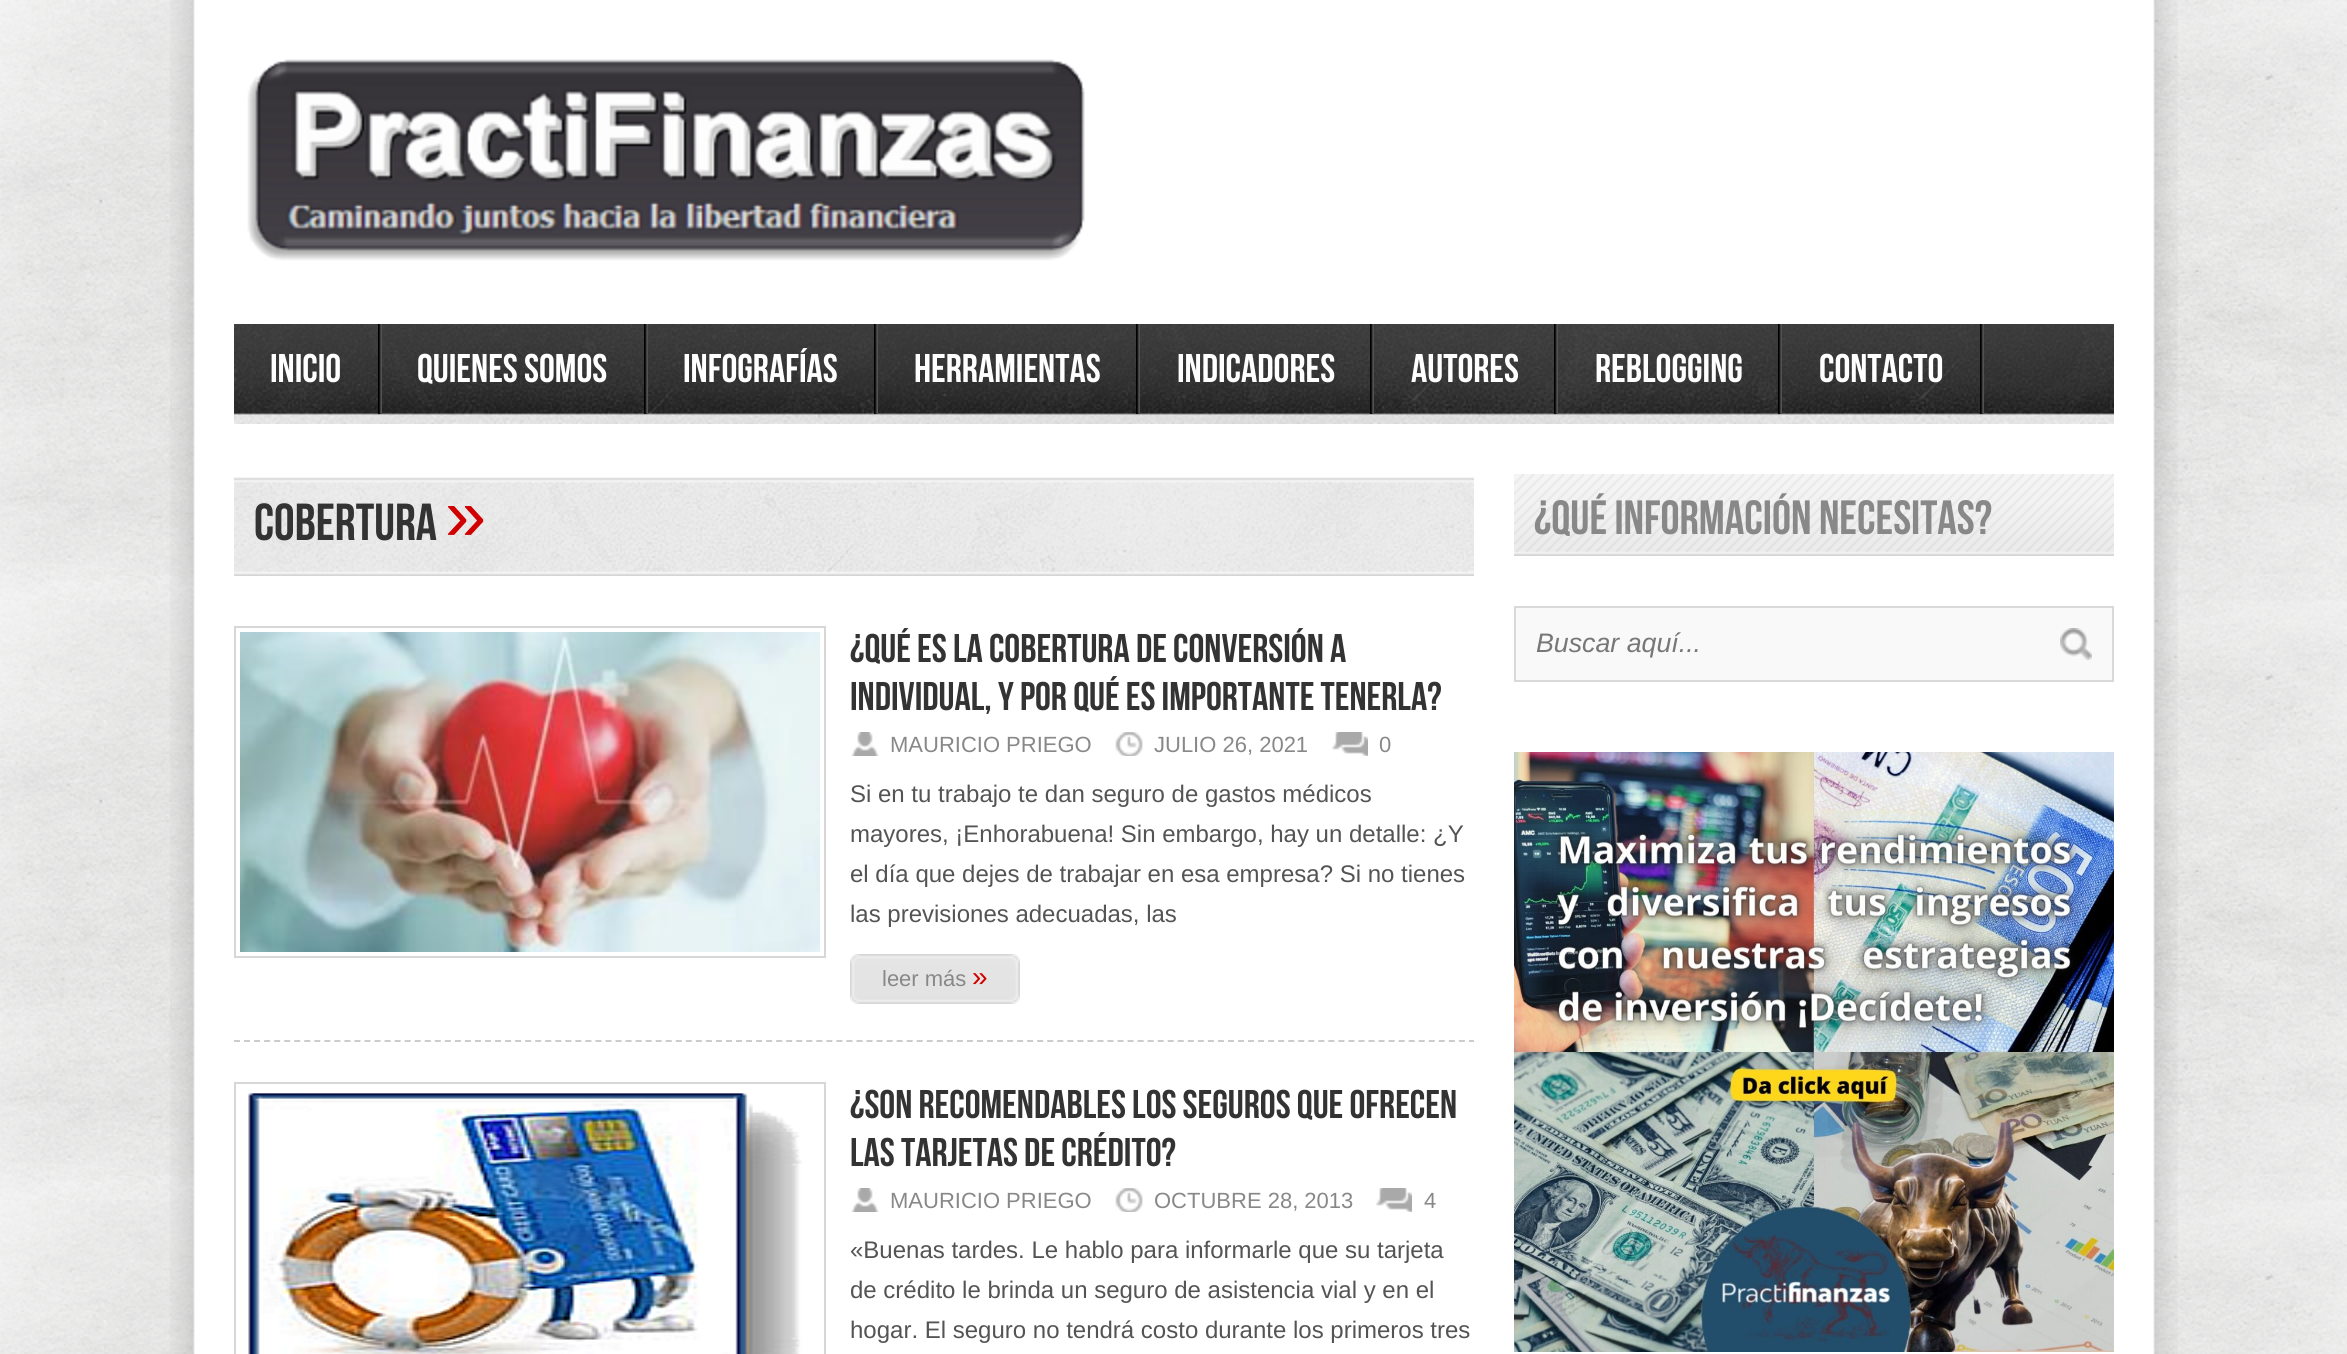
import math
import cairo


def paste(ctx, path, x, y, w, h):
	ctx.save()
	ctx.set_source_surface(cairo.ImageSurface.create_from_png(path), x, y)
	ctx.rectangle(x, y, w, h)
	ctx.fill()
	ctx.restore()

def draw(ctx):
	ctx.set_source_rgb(0.965, 0.965, 0.965)
	ctx.paint()
	paste(ctx, 'media/1.png', 0, 0, 2347, 1354)
	paste(ctx, 'media/2.png', 170, 0, 2008, 1354)
	paste(ctx, 'media/3.png', 247, 59, 838, 202)
	paste(ctx, 'media/4.png', 234, 324, 1880, 100)
	paste(ctx, 'media/5.png', 378, 324, 4, 90)
	ctx.select_font_face('Bebas Neue')
	ctx.set_font_size(40)
	ctx.set_source_rgb(1, 1, 1)
	ctx.move_to(270, 382)
	ctx.show_text('Inicio')
	paste(ctx, 'media/5.png', 644, 324, 4, 90)
	ctx.move_to(417, 382)
	ctx.show_text('Quienes somos')
	paste(ctx, 'media/5.png', 874, 324, 4, 90)
	ctx.move_to(683, 382)
	ctx.show_text('Infografías')
	paste(ctx, 'media/5.png', 1136, 324, 4, 90)
	ctx.move_to(914, 382)
	ctx.show_text('Herramientas')
	paste(ctx, 'media/5.png', 1370, 324, 4, 90)
	ctx.move_to(1177, 382)
	ctx.show_text('Indicadores')
	paste(ctx, 'media/5.png', 1554, 324, 4, 90)
	ctx.move_to(1411, 382)
	ctx.show_text('Autores')
	paste(ctx, 'media/5.png', 1778, 324, 4, 90)
	ctx.move_to(1595, 382)
	ctx.show_text('ReBlogging')
	paste(ctx, 'media/5.png', 1980, 324, 4, 90)
	ctx.move_to(1819, 382)
	ctx.show_text('Contacto')
	paste(ctx, 'media/6.png', 234, 477, 1240, 99)
	ctx.set_font_size(52)
	ctx.set_source_rgb(0.2, 0.2, 0.2)
	ctx.move_to(254, 540)
	ctx.show_text('cobertura')
	ctx.select_font_face('Liberation Sans')
	ctx.set_font_size(74)
	ctx.set_source_rgb(0.816, 0, 0)
	ctx.move_to(445, 540)
	ctx.show_text('»')
	ctx.new_path()
	ctx.move_to(234, 1041)
	ctx.line_to(1474, 1041)
	ctx.set_source_rgb(0.8, 0.8, 0.8)
	ctx.set_dash([6, 4.04])
	ctx.stroke()
	ctx.rectangle(235, 627, 590, 330)
	ctx.set_source_rgb(0.843, 0.843, 0.843)
	ctx.set_dash([])
	ctx.stroke()
	paste(ctx, 'media/7.png', 240, 632, 580, 320)
	ctx.select_font_face('Bebas Neue')
	ctx.set_font_size(40)
	ctx.set_source_rgb(0.2, 0.2, 0.2)
	ctx.move_to(850, 662)
	ctx.show_text('¿Qué es la Cobertura de Conversión a')
	ctx.move_to(850, 710)
	ctx.show_text('Individual, y por qué es importante tenerla?')
	paste(ctx, 'media/8.png', 851, 732, 28, 24)
	ctx.select_font_face('Liberation Sans')
	ctx.set_font_size(22)
	ctx.set_source_rgb(0.533, 0.533, 0.533)
	ctx.move_to(890, 752)
	ctx.show_text('MAURICIO PRIEGO')
	paste(ctx, 'media/9.png', 1115, 732, 28, 24)
	ctx.move_to(1154, 752)
	ctx.show_text('JULIO 26, 2021')
	paste(ctx, 'media/10.png', 1332, 732, 36, 24)
	ctx.move_to(1379, 752)
	ctx.show_text('0')
	ctx.set_font_size(24)
	ctx.set_source_rgb(0.329, 0.329, 0.329)
	for x, y, s in [
		(850, 802, 'Si en tu trabajo te dan seguro de gastos médicos'),
		(850, 842, 'mayores, ¡Enhorabuena! Sin embargo, hay un detalle: ¿Y'),
		(850, 882, 'el día que dejes de trabajar en esa empresa? Si no tienes'),
		(850, 922, 'las previsiones adecuadas, las'),
	]:
		ctx.move_to(x, y)
		ctx.show_text(s)
	paste(ctx, 'media/11.png', 850, 954, 170, 50)
	ctx.set_font_size(22)
	ctx.set_source_rgb(0.533, 0.533, 0.533)
	ctx.move_to(882, 986)
	ctx.show_text('leer más')
	ctx.set_font_size(28)
	ctx.set_source_rgb(0.816, 0, 0)
	ctx.move_to(972, 986)
	ctx.show_text('»')
	ctx.rectangle(235, 1083, 590, 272)
	ctx.set_source_rgb(0.843, 0.843, 0.843)
	ctx.stroke()
	paste(ctx, 'media/12.png', 248, 1093, 554, 261)
	ctx.select_font_face('Bebas Neue')
	ctx.set_font_size(40)
	ctx.set_source_rgb(0.2, 0.2, 0.2)
	ctx.move_to(850, 1118)
	ctx.show_text('¿Son recomendables los seguros que ofrecen')
	ctx.move_to(850, 1166)
	ctx.show_text('las tarjetas de crédito?')
	paste(ctx, 'media/8.png', 851, 1188, 28, 24)
	ctx.select_font_face('Liberation Sans')
	ctx.set_font_size(22)
	ctx.set_source_rgb(0.533, 0.533, 0.533)
	ctx.move_to(890, 1208)
	ctx.show_text('MAURICIO PRIEGO')
	paste(ctx, 'media/9.png', 1115, 1188, 28, 24)
	ctx.move_to(1154, 1208)
	ctx.show_text('OCTUBRE 28, 2013')
	paste(ctx, 'media/10.png', 1376, 1188, 36, 24)
	ctx.move_to(1424, 1208)
	ctx.show_text('4')
	ctx.set_font_size(24)
	ctx.set_source_rgb(0.329, 0.329, 0.329)
	for x, y, s in [
		(850, 1258, '«Buenas tardes. Le hablo para informarle que su tarjeta'),
		(850, 1298, 'de crédito le brinda un seguro de asistencia vial y en el'),
		(850, 1338, 'hogar. El seguro no tendrá costo durante los primeros tres'),
	]:
		ctx.move_to(x, y)
		ctx.show_text(s)
	paste(ctx, 'media/13.png', 1514, 474, 600, 82)
	ctx.select_font_face('Bebas Neue')
	ctx.set_font_size(48)
	ctx.set_source_rgb(0.533, 0.533, 0.533)
	ctx.move_to(1534, 534)
	ctx.show_text('¿Qué información necesitas?')
	ctx.set_source_rgb(0.973, 0.973, 0.973)
	ctx.rectangle(1515, 607, 598, 74)
	ctx.fill_preserve()
	ctx.set_source_rgb(0.851, 0.851, 0.851)
	ctx.stroke()
	ctx.select_font_face('Liberation Sans', cairo.FONT_SLANT_ITALIC)
	ctx.set_font_size(26.75)
	ctx.set_source_rgb(0.467, 0.467, 0.467)
	ctx.move_to(1536, 652)
	ctx.show_text('Buscar aquí...')
	paste(ctx, 'media/14.png', 2060, 628, 32, 32)
	paste(ctx, 'media/15.png', 1514, 752, 600, 600)


surface = cairo.ImageSurface(cairo.FORMAT_RGB24, 2347, 1354)
ctx = cairo.Context(surface)
options = cairo.FontOptions()
options.set_hint_metrics(cairo.HINT_METRICS_OFF)
options.set_hint_style(cairo.HINT_STYLE_NONE)
ctx.set_font_options(options)
ctx.set_miter_limit(4)
draw(ctx)
surface.write_to_png('image.png')
